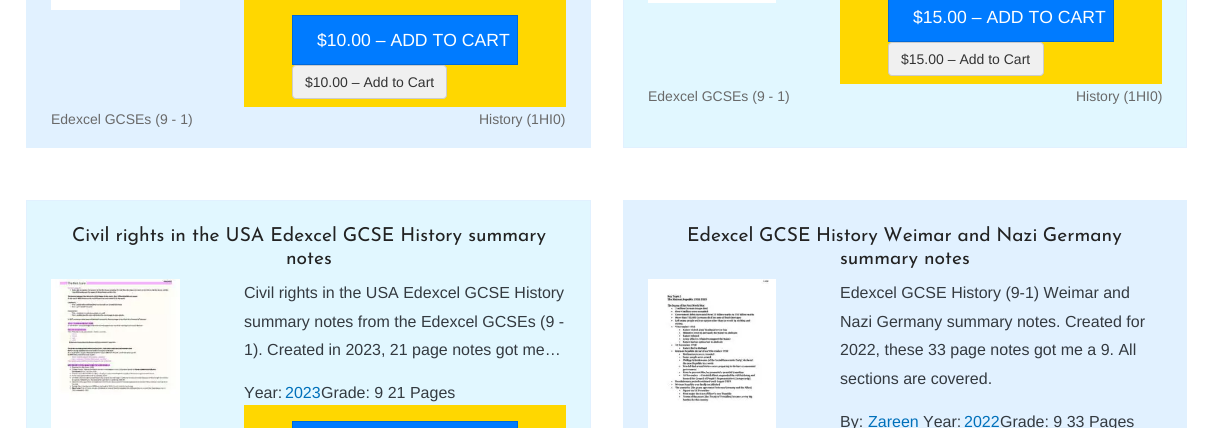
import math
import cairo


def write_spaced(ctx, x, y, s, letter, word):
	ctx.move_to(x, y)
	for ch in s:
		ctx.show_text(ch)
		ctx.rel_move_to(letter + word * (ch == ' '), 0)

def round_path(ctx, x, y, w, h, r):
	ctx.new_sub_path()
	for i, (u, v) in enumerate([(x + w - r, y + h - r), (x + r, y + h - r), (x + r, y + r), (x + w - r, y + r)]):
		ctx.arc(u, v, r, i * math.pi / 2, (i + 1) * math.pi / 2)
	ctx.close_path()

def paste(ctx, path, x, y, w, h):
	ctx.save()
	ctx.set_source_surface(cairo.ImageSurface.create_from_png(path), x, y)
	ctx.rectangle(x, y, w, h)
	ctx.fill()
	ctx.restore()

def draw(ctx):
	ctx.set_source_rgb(1, 1, 1)
	ctx.paint()
	ctx.set_source_rgb(0.882, 0.945, 1)
	ctx.rectangle(26, 0, 565, 148)
	ctx.fill()
	ctx.set_source_rgb(1, 1, 1)
	ctx.rectangle(51, 0, 129, 10)
	ctx.fill()
	ctx.set_source_rgb(1, 0.843, 0)
	ctx.rectangle(244, 0, 322, 107)
	ctx.fill()
	ctx.set_source_rgb(0, 0.482, 1)
	ctx.rectangle(292.5, 15.5, 225, 49)
	ctx.fill_preserve()
	ctx.set_source_rgb(0, 0.412, 0.851)
	ctx.set_line_width(1)
	ctx.stroke()
	ctx.select_font_face('Liberation Sans')
	ctx.set_font_size(17.6)
	ctx.set_source_rgb(1, 1, 1)
	ctx.move_to(317, 46)
	ctx.show_text('$10.00 – ADD TO CART')
	ctx.set_source_rgb(0.941, 0.941, 0.941)
	round_path(ctx, 292.5, 65.5, 154, 33, 3.5)
	ctx.fill_preserve()
	ctx.set_source_rgb(0.8, 0.8, 0.8)
	ctx.stroke()
	ctx.set_font_size(14)
	ctx.set_source_rgb(0.2, 0.2, 0.2)
	ctx.move_to(305, 87)
	ctx.show_text('$10.00 – Add to Cart')
	ctx.set_source_rgb(0.412, 0.412, 0.412)
	ctx.move_to(51, 124)
	ctx.show_text('Edexcel GCSEs (9 - 1)')
	ctx.move_to(479, 124)
	ctx.show_text('History (1HI0)')
	ctx.set_source_rgb(0.882, 0.965, 1)
	ctx.rectangle(623.5, -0.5, 563, 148)
	ctx.fill_preserve()
	ctx.set_source_rgb(0.882, 0.945, 1)
	ctx.stroke()
	ctx.set_source_rgb(1, 1, 1)
	ctx.rectangle(648, 0, 128, 3)
	ctx.fill()
	ctx.set_source_rgb(1, 0.843, 0)
	ctx.rectangle(840, 0, 322, 84)
	ctx.fill()
	ctx.set_source_rgb(0, 0.482, 1)
	ctx.rectangle(888.5, -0.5, 225, 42)
	ctx.fill_preserve()
	ctx.set_source_rgb(0, 0.412, 0.851)
	ctx.stroke()
	ctx.set_font_size(17.6)
	ctx.set_source_rgb(1, 1, 1)
	ctx.move_to(913, 23)
	ctx.show_text('$15.00 – ADD TO CART')
	ctx.set_source_rgb(0.941, 0.941, 0.941)
	round_path(ctx, 888.5, 42.5, 155, 33, 3.5)
	ctx.fill_preserve()
	ctx.set_source_rgb(0.8, 0.8, 0.8)
	ctx.stroke()
	ctx.set_font_size(14)
	ctx.set_source_rgb(0.2, 0.2, 0.2)
	ctx.move_to(901, 64)
	ctx.show_text('$15.00 – Add to Cart')
	ctx.set_source_rgb(0.412, 0.412, 0.412)
	ctx.move_to(648, 101)
	ctx.show_text('Edexcel GCSEs (9 - 1)')
	ctx.move_to(1076, 101)
	ctx.show_text('History (1HI0)')
	ctx.set_source_rgb(0.882, 0.965, 1)
	ctx.rectangle(26.5, 200.5, 564, 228)
	ctx.fill_preserve()
	ctx.set_source_rgb(0.882, 0.945, 1)
	ctx.stroke()
	ctx.select_font_face('Josefin Sans')
	ctx.set_font_size(19.2)
	ctx.set_source_rgb(0.133, 0.133, 0.133)
	ctx.move_to(72, 241)
	ctx.show_text('Civil rights in the USA Edexcel GCSE History summary')
	ctx.move_to(286, 264)
	ctx.show_text('notes')
	paste(ctx, 'media/1.png', 51, 279, 129, 149)
	ctx.select_font_face('Liberation Sans')
	ctx.set_font_size(16)
	ctx.set_source_rgb(0.204, 0.227, 0.251)
	for x, y, s in [
		(244, 298, 'Civil rights in the USA Edexcel GCSE History'),
		(244, 327, 'summary notes from the Edexcel GCSEs (9 -'),
		(244, 355, '1). Created in 2023, 21 page notes got me…'),
		(244, 398, 'Year:'),
	]:
		ctx.move_to(x, y)
		ctx.show_text(s)
	ctx.set_source_rgb(0, 0.439, 0.729)
	ctx.move_to(285, 398)
	ctx.show_text('2023')
	ctx.set_source_rgb(0.204, 0.227, 0.251)
	ctx.move_to(321, 398)
	ctx.show_text('Grade: 9 21 Pages')
	ctx.set_source_rgb(1, 0.843, 0)
	ctx.rectangle(244, 405, 322, 23)
	ctx.fill()
	ctx.set_source_rgb(0, 0.482, 1)
	ctx.rectangle(292.5, 421.5, 225, 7)
	ctx.fill_preserve()
	ctx.set_source_rgb(0, 0.412, 0.851)
	ctx.stroke()
	ctx.set_source_rgb(0.882, 0.945, 1)
	ctx.rectangle(623, 200, 564, 228)
	ctx.fill()
	ctx.select_font_face('Josefin Sans')
	ctx.set_font_size(19.2)
	ctx.set_source_rgb(0.133, 0.133, 0.133)
	write_spaced(ctx, 687, 241, 'Edexcel GCSE History Weimar and Nazi Germany', 0, -0.5)
	ctx.move_to(840, 264)
	ctx.show_text('summary notes')
	paste(ctx, 'media/2.png', 648, 279, 128, 149)
	ctx.select_font_face('Liberation Sans')
	ctx.set_font_size(16)
	ctx.set_source_rgb(0.204, 0.227, 0.251)
	for x, y, s in [
		(840, 298, 'Edexcel GCSE History (9-1) Weimar and'),
		(840, 327, 'Nazi Germany summary notes. Created for'),
		(840, 355, '2022, these 33 page notes got me a 9. All'),
		(840, 384, 'sections are covered.'),
		(840, 427, 'By:'),
	]:
		ctx.move_to(x, y)
		ctx.show_text(s)
	ctx.set_source_rgb(0, 0.439, 0.729)
	ctx.move_to(868, 427)
	ctx.show_text('Zareen')
	ctx.set_source_rgb(0.204, 0.227, 0.251)
	ctx.move_to(923, 427)
	ctx.show_text('Year:')
	ctx.set_source_rgb(0, 0.439, 0.729)
	ctx.move_to(964, 427)
	ctx.show_text('2022')
	ctx.set_source_rgb(0.204, 0.227, 0.251)
	ctx.move_to(1000, 427)
	ctx.show_text('Grade: 9 33 Pages')


surface = cairo.ImageSurface(cairo.FORMAT_RGB24, 1229, 428)
ctx = cairo.Context(surface)
options = cairo.FontOptions()
options.set_hint_metrics(cairo.HINT_METRICS_OFF)
options.set_hint_style(cairo.HINT_STYLE_NONE)
ctx.set_font_options(options)
ctx.set_miter_limit(4)
draw(ctx)
surface.write_to_png('image.png')
